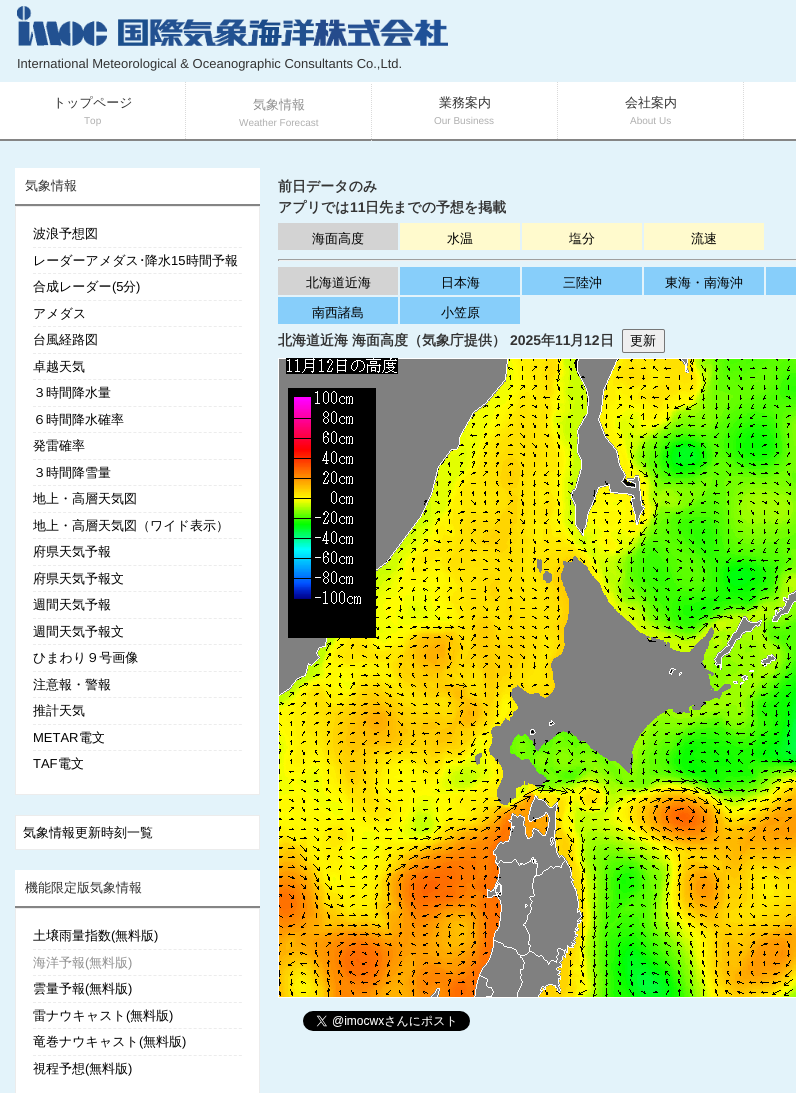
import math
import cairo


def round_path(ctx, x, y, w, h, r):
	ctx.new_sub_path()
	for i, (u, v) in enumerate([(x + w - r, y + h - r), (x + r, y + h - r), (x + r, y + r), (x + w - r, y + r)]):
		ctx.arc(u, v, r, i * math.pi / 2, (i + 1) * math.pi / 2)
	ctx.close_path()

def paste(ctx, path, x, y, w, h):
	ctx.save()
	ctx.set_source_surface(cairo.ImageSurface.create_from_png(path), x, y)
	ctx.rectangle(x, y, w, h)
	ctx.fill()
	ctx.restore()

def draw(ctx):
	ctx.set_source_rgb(0.89, 0.953, 0.98)
	ctx.paint()
	paste(ctx, 'media/1.png', 17, 6, 90, 40)
	paste(ctx, 'media/2.png', 118, 19, 330, 27)
	ctx.select_font_face('Liberation Sans')
	ctx.set_font_size(13)
	ctx.set_source_rgb(0.2, 0.2, 0.2)
	ctx.move_to(17, 68)
	ctx.show_text('International Meteorological & Oceanographic Consultants Co.,Ltd.')
	ctx.set_source_rgb(1, 1, 1)
	ctx.rectangle(0, 82, 796, 57)
	ctx.fill()
	ctx.set_source_rgb(0.522, 0.522, 0.522)
	ctx.rectangle(0, 139, 796, 2)
	ctx.fill()
	ctx.new_path()
	ctx.move_to(185.5, 82)
	ctx.line_to(185.5, 139)
	ctx.set_source_rgb(0.855, 0.855, 0.855)
	ctx.set_line_width(1)
	ctx.set_dash([1, 1])
	ctx.stroke()
	ctx.select_font_face('WenQuanYi Zen Hei Medium')
	ctx.set_source_rgb(0.2, 0.2, 0.2)
	ctx.move_to(53, 107)
	ctx.show_text('トップページ')
	ctx.select_font_face('Liberation Sans')
	ctx.set_font_size(10)
	ctx.set_source_rgb(0.686, 0.686, 0.686)
	ctx.move_to(84, 124)
	ctx.show_text('Top')
	ctx.new_path()
	ctx.move_to(371.5, 84)
	ctx.line_to(371.5, 141)
	ctx.set_source_rgb(0.855, 0.855, 0.855)
	ctx.stroke()
	ctx.select_font_face('WenQuanYi Zen Hei Medium')
	ctx.set_font_size(13)
	ctx.set_source_rgb(0.565, 0.565, 0.565)
	ctx.move_to(253, 109)
	ctx.show_text('気象情報')
	ctx.select_font_face('Liberation Sans')
	ctx.set_font_size(10)
	ctx.set_source_rgb(0.686, 0.686, 0.686)
	ctx.move_to(239, 126)
	ctx.show_text('Weather Forecast')
	ctx.new_path()
	ctx.move_to(557.5, 82)
	ctx.line_to(557.5, 139)
	ctx.set_source_rgb(0.855, 0.855, 0.855)
	ctx.stroke()
	ctx.select_font_face('WenQuanYi Zen Hei Medium')
	ctx.set_font_size(13)
	ctx.set_source_rgb(0.2, 0.2, 0.2)
	ctx.move_to(439, 107)
	ctx.show_text('業務案内')
	ctx.select_font_face('Liberation Sans')
	ctx.set_font_size(10)
	ctx.set_source_rgb(0.686, 0.686, 0.686)
	ctx.move_to(434, 124)
	ctx.show_text('Our Business')
	ctx.new_path()
	ctx.move_to(743.5, 82)
	ctx.line_to(743.5, 139)
	ctx.set_source_rgb(0.855, 0.855, 0.855)
	ctx.stroke()
	ctx.select_font_face('WenQuanYi Zen Hei Medium')
	ctx.set_font_size(13)
	ctx.set_source_rgb(0.2, 0.2, 0.2)
	ctx.move_to(625, 107)
	ctx.show_text('会社案内')
	ctx.select_font_face('Liberation Sans')
	ctx.set_font_size(10)
	ctx.set_source_rgb(0.686, 0.686, 0.686)
	ctx.move_to(630, 124)
	ctx.show_text('About Us')
	ctx.set_source_rgb(1, 1, 1)
	ctx.rectangle(15, 168, 245, 36)
	ctx.fill()
	ctx.set_source_rgb(0.522, 0.522, 0.522)
	ctx.rectangle(15, 204, 245, 2)
	ctx.fill()
	ctx.select_font_face('WenQuanYi Zen Hei Medium')
	ctx.set_font_size(13)
	ctx.set_source_rgb(0.2, 0.2, 0.2)
	ctx.move_to(25, 190)
	ctx.show_text('気象情報')
	ctx.set_source_rgb(1, 1, 1)
	ctx.rectangle(15.5, 206.5, 244, 588)
	ctx.fill_preserve()
	ctx.set_source_rgb(0.922, 0.922, 0.922)
	ctx.set_dash([])
	ctx.stroke()
	ctx.new_path()
	ctx.move_to(33, 247.5)
	ctx.line_to(242, 247.5)
	ctx.set_dash([3, 2.02])
	ctx.stroke()
	ctx.set_source_rgb(0, 0, 0)
	ctx.move_to(33, 238)
	ctx.show_text('波浪予想図')
	ctx.new_path()
	ctx.move_to(33, 273.5)
	ctx.line_to(242, 273.5)
	ctx.set_source_rgb(0.922, 0.922, 0.922)
	ctx.stroke()
	ctx.set_source_rgb(0, 0, 0)
	ctx.move_to(33, 265)
	ctx.show_text('レーダーアメダス')
	ctx.select_font_face('IPAPGothic')
	ctx.move_to(139, 265)
	ctx.show_text('･')
	ctx.select_font_face('WenQuanYi Zen Hei Medium')
	ctx.move_to(145, 265)
	ctx.show_text('降水')
	ctx.select_font_face('Liberation Sans')
	ctx.move_to(171, 265)
	ctx.show_text('15')
	ctx.select_font_face('WenQuanYi Zen Hei Medium')
	ctx.move_to(186, 265)
	ctx.show_text('時間予報')
	ctx.new_path()
	ctx.move_to(33, 300.5)
	ctx.line_to(242, 300.5)
	ctx.set_source_rgb(0.922, 0.922, 0.922)
	ctx.stroke()
	ctx.set_source_rgb(0, 0, 0)
	ctx.move_to(33, 291)
	ctx.show_text('合成レーダー')
	ctx.select_font_face('Liberation Sans')
	ctx.move_to(112, 291)
	ctx.show_text('(5')
	ctx.select_font_face('WenQuanYi Zen Hei Medium')
	ctx.move_to(123, 291)
	ctx.show_text('分')
	ctx.select_font_face('Liberation Sans')
	ctx.move_to(136, 291)
	ctx.show_text(')')
	ctx.new_path()
	ctx.move_to(33, 326.5)
	ctx.line_to(242, 326.5)
	ctx.set_source_rgb(0.922, 0.922, 0.922)
	ctx.stroke()
	ctx.select_font_face('WenQuanYi Zen Hei Medium')
	ctx.set_source_rgb(0, 0, 0)
	ctx.move_to(33, 318)
	ctx.show_text('アメダス')
	ctx.new_path()
	ctx.move_to(33, 353.5)
	ctx.line_to(242, 353.5)
	ctx.set_source_rgb(0.922, 0.922, 0.922)
	ctx.stroke()
	ctx.set_source_rgb(0, 0, 0)
	ctx.move_to(33, 344)
	ctx.show_text('台風経路図')
	ctx.new_path()
	ctx.move_to(33, 379.5)
	ctx.line_to(242, 379.5)
	ctx.set_source_rgb(0.922, 0.922, 0.922)
	ctx.stroke()
	ctx.set_source_rgb(0, 0, 0)
	ctx.move_to(33, 371)
	ctx.show_text('卓越天気')
	ctx.new_path()
	ctx.move_to(33, 406.5)
	ctx.line_to(242, 406.5)
	ctx.set_source_rgb(0.922, 0.922, 0.922)
	ctx.stroke()
	ctx.set_source_rgb(0, 0, 0)
	ctx.move_to(33, 397)
	ctx.show_text('３時間降水量')
	ctx.new_path()
	ctx.move_to(33, 432.5)
	ctx.line_to(242, 432.5)
	ctx.set_source_rgb(0.922, 0.922, 0.922)
	ctx.stroke()
	ctx.set_source_rgb(0, 0, 0)
	ctx.move_to(33, 424)
	ctx.show_text('６時間降水確率')
	ctx.new_path()
	ctx.move_to(33, 459.5)
	ctx.line_to(242, 459.5)
	ctx.set_source_rgb(0.922, 0.922, 0.922)
	ctx.stroke()
	ctx.set_source_rgb(0, 0, 0)
	ctx.move_to(33, 450)
	ctx.show_text('発雷確率')
	ctx.new_path()
	ctx.move_to(33, 485.5)
	ctx.line_to(242, 485.5)
	ctx.set_source_rgb(0.922, 0.922, 0.922)
	ctx.stroke()
	ctx.set_source_rgb(0, 0, 0)
	ctx.move_to(33, 477)
	ctx.show_text('３時間降雪量')
	ctx.new_path()
	ctx.move_to(33, 512.5)
	ctx.line_to(242, 512.5)
	ctx.set_source_rgb(0.922, 0.922, 0.922)
	ctx.stroke()
	ctx.set_source_rgb(0, 0, 0)
	ctx.move_to(33, 503)
	ctx.show_text('地上・高層天気図')
	ctx.new_path()
	ctx.move_to(33, 538.5)
	ctx.line_to(242, 538.5)
	ctx.set_source_rgb(0.922, 0.922, 0.922)
	ctx.stroke()
	ctx.set_source_rgb(0, 0, 0)
	ctx.move_to(33, 530)
	ctx.show_text('地上・高層天気図（ワイド表示）')
	ctx.new_path()
	ctx.move_to(33, 565.5)
	ctx.line_to(242, 565.5)
	ctx.set_source_rgb(0.922, 0.922, 0.922)
	ctx.stroke()
	ctx.set_source_rgb(0, 0, 0)
	ctx.move_to(33, 556)
	ctx.show_text('府県天気予報')
	ctx.new_path()
	ctx.move_to(33, 591.5)
	ctx.line_to(242, 591.5)
	ctx.set_source_rgb(0.922, 0.922, 0.922)
	ctx.stroke()
	ctx.set_source_rgb(0, 0, 0)
	ctx.move_to(33, 583)
	ctx.show_text('府県天気予報文')
	ctx.new_path()
	ctx.move_to(33, 618.5)
	ctx.line_to(242, 618.5)
	ctx.set_source_rgb(0.922, 0.922, 0.922)
	ctx.stroke()
	ctx.set_source_rgb(0, 0, 0)
	ctx.move_to(33, 609)
	ctx.show_text('週間天気予報')
	ctx.new_path()
	ctx.move_to(33, 644.5)
	ctx.line_to(242, 644.5)
	ctx.set_source_rgb(0.922, 0.922, 0.922)
	ctx.stroke()
	ctx.set_source_rgb(0, 0, 0)
	ctx.move_to(33, 636)
	ctx.show_text('週間天気予報文')
	ctx.new_path()
	ctx.move_to(33, 671.5)
	ctx.line_to(242, 671.5)
	ctx.set_source_rgb(0.922, 0.922, 0.922)
	ctx.stroke()
	ctx.set_source_rgb(0, 0, 0)
	ctx.move_to(33, 662)
	ctx.show_text('ひまわり９号画像')
	ctx.new_path()
	ctx.move_to(33, 697.5)
	ctx.line_to(242, 697.5)
	ctx.set_source_rgb(0.922, 0.922, 0.922)
	ctx.stroke()
	ctx.set_source_rgb(0, 0, 0)
	ctx.move_to(33, 689)
	ctx.show_text('注意報・警報')
	ctx.new_path()
	ctx.move_to(33, 724.5)
	ctx.line_to(242, 724.5)
	ctx.set_source_rgb(0.922, 0.922, 0.922)
	ctx.stroke()
	ctx.set_source_rgb(0, 0, 0)
	ctx.move_to(33, 715)
	ctx.show_text('推計天気')
	ctx.new_path()
	ctx.move_to(33, 750.5)
	ctx.line_to(242, 750.5)
	ctx.set_source_rgb(0.922, 0.922, 0.922)
	ctx.stroke()
	ctx.select_font_face('Liberation Sans')
	ctx.set_source_rgb(0, 0, 0)
	ctx.move_to(33, 742)
	ctx.show_text('METAR')
	ctx.select_font_face('WenQuanYi Zen Hei Medium')
	ctx.move_to(79, 742)
	ctx.show_text('電文')
	ctx.select_font_face('Liberation Sans')
	ctx.move_to(33, 768)
	ctx.show_text('TAF')
	ctx.select_font_face('WenQuanYi Zen Hei Medium')
	ctx.move_to(58, 768)
	ctx.show_text('電文')
	ctx.set_source_rgb(1, 1, 1)
	ctx.rectangle(15.5, 815.5, 244, 34)
	ctx.fill_preserve()
	ctx.set_source_rgb(0.922, 0.922, 0.922)
	ctx.set_dash([])
	ctx.stroke()
	ctx.set_source_rgb(0, 0, 0)
	ctx.move_to(23, 837)
	ctx.show_text('気象情報更新時刻一覧')
	ctx.set_source_rgb(1, 1, 1)
	ctx.rectangle(15, 870, 245, 36)
	ctx.fill()
	ctx.set_source_rgb(0.522, 0.522, 0.522)
	ctx.rectangle(15, 906, 245, 2)
	ctx.fill()
	ctx.set_source_rgb(0.2, 0.2, 0.2)
	ctx.move_to(25, 892)
	ctx.show_text('機能限定版気象情報')
	ctx.set_source_rgb(1, 1, 1)
	ctx.rectangle(15.5, 908.5, 244, 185)
	ctx.fill_preserve()
	ctx.set_source_rgb(0.922, 0.922, 0.922)
	ctx.stroke()
	ctx.new_path()
	ctx.move_to(33, 949.5)
	ctx.line_to(242, 949.5)
	ctx.set_dash([3, 2.02])
	ctx.stroke()
	ctx.set_source_rgb(0, 0, 0)
	ctx.move_to(33, 940)
	ctx.show_text('土壌雨量指数')
	ctx.select_font_face('Liberation Sans')
	ctx.move_to(111, 940)
	ctx.show_text('(')
	ctx.select_font_face('WenQuanYi Zen Hei Medium')
	ctx.move_to(115, 940)
	ctx.show_text('無料版')
	ctx.select_font_face('Liberation Sans')
	ctx.move_to(154, 940)
	ctx.show_text(')')
	ctx.new_path()
	ctx.move_to(33, 975.5)
	ctx.line_to(242, 975.5)
	ctx.set_source_rgb(0.922, 0.922, 0.922)
	ctx.stroke()
	ctx.select_font_face('WenQuanYi Zen Hei Medium')
	ctx.set_source_rgb(0.565, 0.565, 0.565)
	ctx.move_to(33, 967)
	ctx.show_text('海洋予報')
	ctx.select_font_face('Liberation Sans')
	ctx.move_to(85, 967)
	ctx.show_text('(')
	ctx.select_font_face('WenQuanYi Zen Hei Medium')
	ctx.move_to(89, 967)
	ctx.show_text('無料版')
	ctx.select_font_face('Liberation Sans')
	ctx.move_to(128, 967)
	ctx.show_text(')')
	ctx.new_path()
	ctx.move_to(33, 1002.5)
	ctx.line_to(242, 1002.5)
	ctx.set_source_rgb(0.922, 0.922, 0.922)
	ctx.stroke()
	ctx.select_font_face('WenQuanYi Zen Hei Medium')
	ctx.set_source_rgb(0, 0, 0)
	ctx.move_to(33, 993)
	ctx.show_text('雲量予報')
	ctx.select_font_face('Liberation Sans')
	ctx.move_to(85, 993)
	ctx.show_text('(')
	ctx.select_font_face('WenQuanYi Zen Hei Medium')
	ctx.move_to(89, 993)
	ctx.show_text('無料版')
	ctx.select_font_face('Liberation Sans')
	ctx.move_to(128, 993)
	ctx.show_text(')')
	ctx.new_path()
	ctx.move_to(33, 1028.5)
	ctx.line_to(242, 1028.5)
	ctx.set_source_rgb(0.922, 0.922, 0.922)
	ctx.stroke()
	ctx.select_font_face('WenQuanYi Zen Hei Medium')
	ctx.set_source_rgb(0, 0, 0)
	ctx.move_to(33, 1020)
	ctx.show_text('雷ナウキャスト')
	ctx.select_font_face('Liberation Sans')
	ctx.move_to(126, 1020)
	ctx.show_text('(')
	ctx.select_font_face('WenQuanYi Zen Hei Medium')
	ctx.move_to(130, 1020)
	ctx.show_text('無料版')
	ctx.select_font_face('Liberation Sans')
	ctx.move_to(169, 1020)
	ctx.show_text(')')
	ctx.new_path()
	ctx.move_to(33, 1055.5)
	ctx.line_to(242, 1055.5)
	ctx.set_source_rgb(0.922, 0.922, 0.922)
	ctx.stroke()
	ctx.select_font_face('WenQuanYi Zen Hei Medium')
	ctx.set_source_rgb(0, 0, 0)
	ctx.move_to(33, 1046)
	ctx.show_text('竜巻ナウキャスト')
	ctx.select_font_face('Liberation Sans')
	ctx.move_to(139, 1046)
	ctx.show_text('(')
	ctx.select_font_face('WenQuanYi Zen Hei Medium')
	ctx.move_to(143, 1046)
	ctx.show_text('無料版')
	ctx.select_font_face('Liberation Sans')
	ctx.move_to(182, 1046)
	ctx.show_text(')')
	ctx.select_font_face('WenQuanYi Zen Hei Medium')
	ctx.move_to(33, 1073)
	ctx.show_text('視程予想')
	ctx.select_font_face('Liberation Sans')
	ctx.move_to(85, 1073)
	ctx.show_text('(')
	ctx.select_font_face('WenQuanYi Zen Hei Medium')
	ctx.move_to(89, 1073)
	ctx.show_text('無料版')
	ctx.select_font_face('Liberation Sans')
	ctx.move_to(128, 1073)
	ctx.show_text(')')
	ctx.select_font_face('WenQuanYi Zen Hei', cairo.FONT_SLANT_NORMAL, cairo.FONT_WEIGHT_BOLD)
	ctx.set_font_size(14)
	ctx.set_source_rgb(0.2, 0.2, 0.2)
	ctx.move_to(278, 191)
	ctx.show_text('前日データのみ')
	ctx.move_to(278, 212)
	ctx.show_text('アプリでは')
	ctx.select_font_face('Liberation Sans', cairo.FONT_SLANT_NORMAL, cairo.FONT_WEIGHT_BOLD)
	ctx.move_to(350, 212)
	ctx.show_text('11')
	ctx.select_font_face('WenQuanYi Zen Hei', cairo.FONT_SLANT_NORMAL, cairo.FONT_WEIGHT_BOLD)
	ctx.move_to(365, 212)
	ctx.show_text('日先までの予想を掲載')
	ctx.set_source_rgb(0.827, 0.827, 0.827)
	ctx.rectangle(278, 223, 120, 27)
	ctx.fill()
	ctx.select_font_face('WenQuanYi Zen Hei Medium')
	ctx.set_font_size(13)
	ctx.set_source_rgb(0, 0, 0)
	ctx.move_to(312, 243)
	ctx.show_text('海面高度')
	ctx.set_source_rgb(1, 0.98, 0.804)
	ctx.rectangle(400, 223, 120, 27)
	ctx.fill()
	ctx.set_source_rgb(0, 0, 0)
	ctx.move_to(447, 243)
	ctx.show_text('水温')
	ctx.set_source_rgb(1, 0.98, 0.804)
	ctx.rectangle(522, 223, 120, 27)
	ctx.fill()
	ctx.set_source_rgb(0, 0, 0)
	ctx.move_to(569, 243)
	ctx.show_text('塩分')
	ctx.set_source_rgb(1, 0.98, 0.804)
	ctx.rectangle(644, 223, 120, 27)
	ctx.fill()
	ctx.set_source_rgb(0, 0, 0)
	ctx.move_to(691, 243)
	ctx.show_text('流速')
	ctx.set_source_rgb(0.624, 0.624, 0.624)
	ctx.rectangle(278, 259, 518, 1)
	ctx.fill()
	ctx.set_source_rgb(0.933, 0.933, 0.933)
	ctx.rectangle(278, 260, 518, 1)
	ctx.fill()
	ctx.set_source_rgb(0.624, 0.624, 0.624)
	ctx.rectangle(278, 259, 1, 2)
	ctx.fill()
	ctx.set_source_rgb(0.827, 0.827, 0.827)
	ctx.rectangle(278, 267, 120, 28)
	ctx.fill()
	ctx.set_source_rgb(0, 0, 0)
	ctx.move_to(306, 287)
	ctx.show_text('北海道近海')
	ctx.set_source_rgb(0.529, 0.808, 0.98)
	ctx.rectangle(400, 267, 120, 28)
	ctx.fill()
	ctx.set_source_rgb(0, 0, 0)
	ctx.move_to(441, 287)
	ctx.show_text('日本海')
	ctx.set_source_rgb(0.529, 0.808, 0.98)
	ctx.rectangle(522, 267, 120, 28)
	ctx.fill()
	ctx.set_source_rgb(0, 0, 0)
	ctx.move_to(563, 287)
	ctx.show_text('三陸沖')
	ctx.set_source_rgb(0.529, 0.808, 0.98)
	ctx.rectangle(644, 267, 120, 28)
	ctx.fill()
	ctx.set_source_rgb(0, 0, 0)
	ctx.move_to(665, 287)
	ctx.show_text('東海・南海沖')
	ctx.set_source_rgb(0.529, 0.808, 0.98)
	ctx.rectangle(766, 267, 30, 28)
	ctx.fill()
	ctx.rectangle(278, 297, 120, 27)
	ctx.fill()
	ctx.set_source_rgb(0, 0, 0)
	ctx.move_to(312, 317)
	ctx.show_text('南西諸島')
	ctx.set_source_rgb(0.529, 0.808, 0.98)
	ctx.rectangle(400, 297, 120, 27)
	ctx.fill()
	ctx.set_source_rgb(0, 0, 0)
	ctx.move_to(441, 317)
	ctx.show_text('小笠原')
	ctx.select_font_face('WenQuanYi Zen Hei', cairo.FONT_SLANT_NORMAL, cairo.FONT_WEIGHT_BOLD)
	ctx.set_font_size(14)
	ctx.set_source_rgb(0.2, 0.2, 0.2)
	ctx.move_to(278, 345)
	ctx.show_text('北海道近海')
	ctx.move_to(352, 345)
	ctx.show_text('海面高度（気象庁提供）')
	ctx.select_font_face('Liberation Sans', cairo.FONT_SLANT_NORMAL, cairo.FONT_WEIGHT_BOLD)
	ctx.move_to(510, 345)
	ctx.show_text('2025')
	ctx.select_font_face('WenQuanYi Zen Hei', cairo.FONT_SLANT_NORMAL, cairo.FONT_WEIGHT_BOLD)
	ctx.move_to(541, 345)
	ctx.show_text('年')
	ctx.select_font_face('Liberation Sans', cairo.FONT_SLANT_NORMAL, cairo.FONT_WEIGHT_BOLD)
	ctx.move_to(555, 345)
	ctx.show_text('11')
	ctx.select_font_face('WenQuanYi Zen Hei', cairo.FONT_SLANT_NORMAL, cairo.FONT_WEIGHT_BOLD)
	ctx.move_to(570, 345)
	ctx.show_text('月')
	ctx.select_font_face('Liberation Sans', cairo.FONT_SLANT_NORMAL, cairo.FONT_WEIGHT_BOLD)
	ctx.move_to(584, 345)
	ctx.show_text('12')
	ctx.select_font_face('WenQuanYi Zen Hei', cairo.FONT_SLANT_NORMAL, cairo.FONT_WEIGHT_BOLD)
	ctx.move_to(600, 345)
	ctx.show_text('日')
	ctx.set_source_rgb(0.937, 0.937, 0.937)
	round_path(ctx, 622.5, 329.5, 42, 23, 1.5)
	ctx.fill_preserve()
	ctx.set_source_rgb(0.463, 0.463, 0.463)
	ctx.set_dash([])
	ctx.stroke()
	ctx.select_font_face('WenQuanYi Zen Hei Medium')
	ctx.set_font_size(13)
	ctx.set_source_rgb(0, 0, 0)
	ctx.move_to(630, 345)
	ctx.show_text('更新')
	paste(ctx, 'media/3.png', 278, 358, 518, 640)
	paste(ctx, 'media/4.png', 303, 1011, 167, 20)


surface = cairo.ImageSurface(cairo.FORMAT_RGB24, 796, 1093)
ctx = cairo.Context(surface)
options = cairo.FontOptions()
options.set_hint_metrics(cairo.HINT_METRICS_OFF)
options.set_hint_style(cairo.HINT_STYLE_NONE)
ctx.set_font_options(options)
ctx.set_miter_limit(4)
draw(ctx)
surface.write_to_png('image.png')
